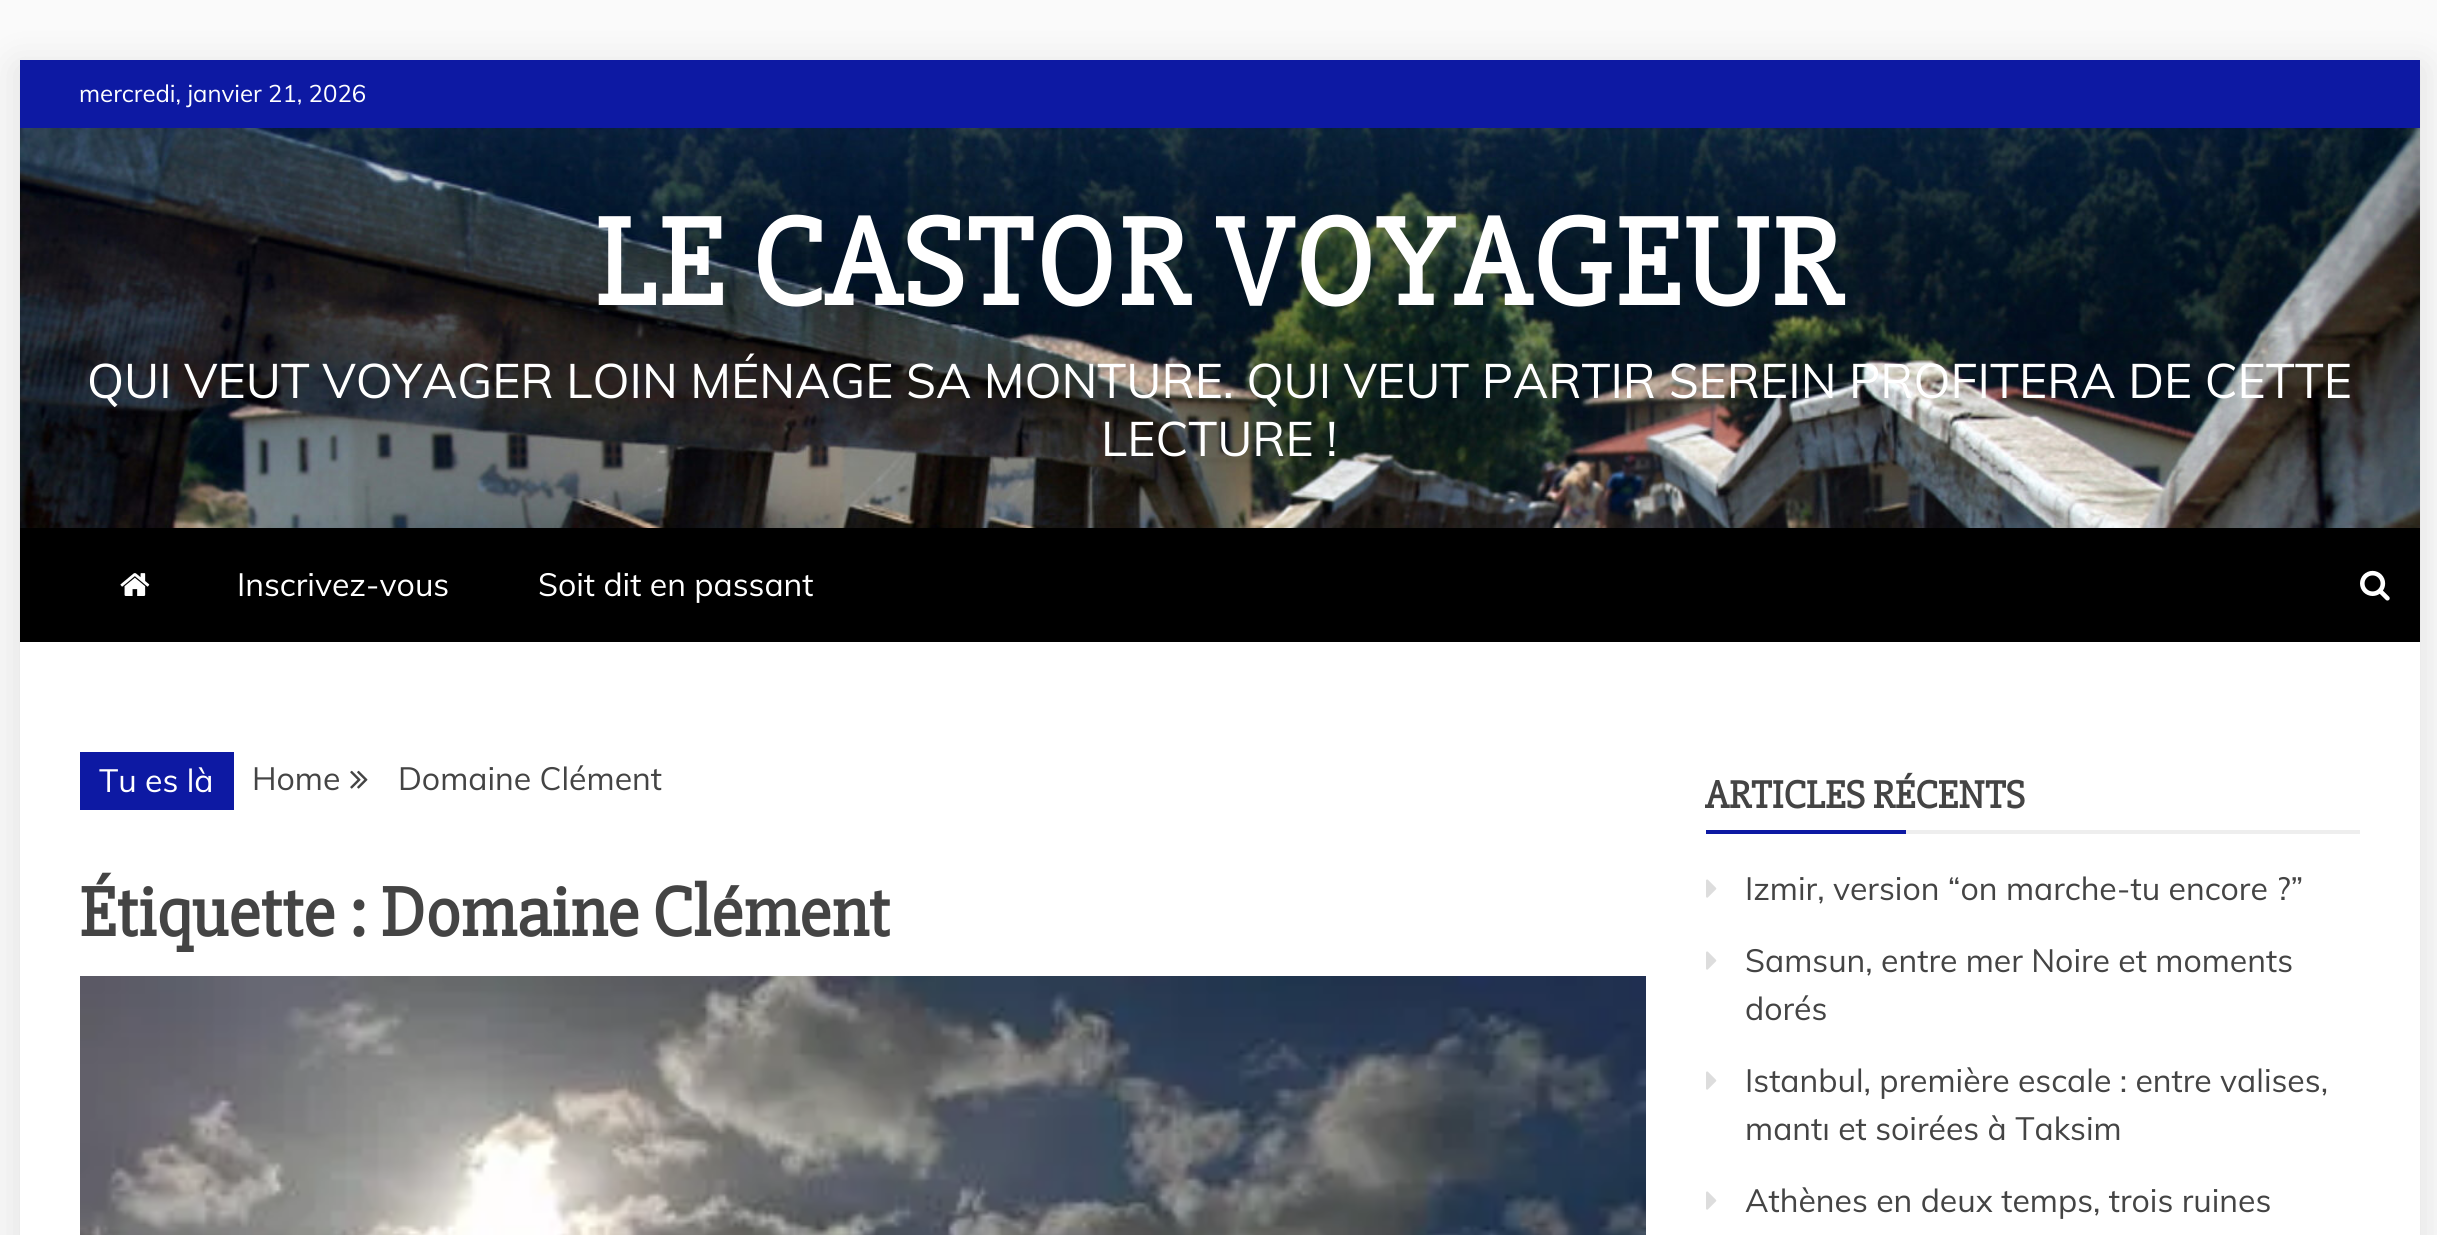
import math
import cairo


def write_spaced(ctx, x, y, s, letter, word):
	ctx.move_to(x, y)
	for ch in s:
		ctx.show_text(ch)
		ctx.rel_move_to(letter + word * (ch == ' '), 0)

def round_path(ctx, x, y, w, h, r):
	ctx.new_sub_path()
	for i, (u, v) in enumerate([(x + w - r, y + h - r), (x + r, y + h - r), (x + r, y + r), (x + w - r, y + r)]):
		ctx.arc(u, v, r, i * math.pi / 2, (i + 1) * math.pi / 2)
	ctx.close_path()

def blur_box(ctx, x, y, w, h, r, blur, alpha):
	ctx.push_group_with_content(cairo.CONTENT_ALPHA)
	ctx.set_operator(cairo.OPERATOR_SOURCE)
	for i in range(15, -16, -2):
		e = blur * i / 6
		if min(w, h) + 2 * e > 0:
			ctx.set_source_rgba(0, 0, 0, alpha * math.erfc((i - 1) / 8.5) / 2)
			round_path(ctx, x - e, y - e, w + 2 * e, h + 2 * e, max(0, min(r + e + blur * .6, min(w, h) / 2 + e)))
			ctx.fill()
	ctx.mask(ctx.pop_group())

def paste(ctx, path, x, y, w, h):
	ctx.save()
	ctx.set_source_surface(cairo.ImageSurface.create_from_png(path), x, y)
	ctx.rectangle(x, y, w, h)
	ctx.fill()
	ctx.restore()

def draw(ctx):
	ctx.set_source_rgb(0.98, 0.98, 0.98)
	ctx.paint()
	ctx.set_source_rgb(0, 0, 0)
	blur_box(ctx, 16, 66, 2408, 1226, 0, 19, 0.1)
	ctx.set_source_rgb(1, 1, 1)
	ctx.rectangle(20, 642, 2400, 593)
	ctx.fill()
	ctx.set_source_rgb(0.051, 0.098, 0.639)
	ctx.rectangle(20, 60, 2400, 68)
	ctx.fill()
	ctx.select_font_face('Muli')
	ctx.set_font_size(24)
	ctx.set_source_rgb(1, 1, 1)
	ctx.move_to(79, 102)
	ctx.show_text('mercredi, janvier 21, 2026')
	paste(ctx, 'media/1.png', 20, 128, 2400, 400)
	ctx.select_font_face('Slabo 27px', cairo.FONT_SLANT_NORMAL, cairo.FONT_WEIGHT_BOLD)
	ctx.set_font_size(128)
	write_spaced(ctx, 594, 305, 'LE CASTOR VOYAGEUR', 2, 0)
	ctx.select_font_face('Muli')
	ctx.set_font_size(48)
	ctx.move_to(87, 398)
	ctx.show_text('QUI VEUT VOYAGER LOIN MÉNAGE SA MONTURE. QUI VEUT PARTIR SEREIN PROFITERA DE CETTE')
	ctx.move_to(1101, 456)
	ctx.show_text('LECTURE !')
	ctx.set_source_rgb(0, 0, 0)
	ctx.rectangle(20, 528, 2400, 114)
	ctx.fill()
	paste(ctx, 'media/2.png', 120, 573, 30, 23)
	ctx.set_font_size(32)
	ctx.set_source_rgb(1, 1, 1)
	ctx.move_to(237, 596)
	ctx.show_text('Inscrivez-vous')
	ctx.move_to(538, 596)
	ctx.show_text('Soit dit en passant')
	paste(ctx, 'media/3.png', 2360, 570, 30, 31)
	ctx.set_source_rgb(0.051, 0.098, 0.639)
	ctx.rectangle(80, 752, 154, 58)
	ctx.fill()
	ctx.set_source_rgb(1, 1, 1)
	ctx.move_to(99, 792)
	ctx.show_text('Tu es là')
	ctx.set_source_rgb(0.267, 0.267, 0.267)
	ctx.move_to(252, 790)
	ctx.show_text('Home')
	paste(ctx, 'media/4.png', 350, 770, 18, 19)
	ctx.move_to(398, 790)
	ctx.show_text('Domaine Clément')
	ctx.select_font_face('Slabo 27px', cairo.FONT_SLANT_NORMAL, cairo.FONT_WEIGHT_BOLD)
	ctx.set_font_size(72)
	ctx.move_to(79, 936)
	ctx.show_text('Étiquette : Domaine Clément')
	paste(ctx, 'media/5.png', 80, 976, 1566, 259)
	ctx.set_source_rgb(0.933, 0.933, 0.933)
	ctx.rectangle(1906, 830, 454, 4)
	ctx.fill()
	ctx.set_font_size(40)
	ctx.set_source_rgb(0.267, 0.267, 0.267)
	ctx.move_to(1705, 808)
	ctx.show_text('ARTICLES RÉCENTS')
	ctx.set_source_rgb(0.051, 0.098, 0.639)
	ctx.rectangle(1706, 830, 200, 4)
	ctx.fill()
	paste(ctx, 'media/6.png', 1706, 879, 11, 19)
	ctx.select_font_face('Muli')
	ctx.set_font_size(32)
	ctx.set_source_rgb(0.267, 0.267, 0.267)
	ctx.move_to(1745, 900)
	ctx.show_text('Izmir, version “on marche-tu encore ?”')
	paste(ctx, 'media/6.png', 1706, 951, 11, 19)
	ctx.move_to(1745, 972)
	ctx.show_text('Samsun, entre mer Noire et moments')
	ctx.move_to(1745, 1020)
	ctx.show_text('dorés')
	paste(ctx, 'media/6.png', 1706, 1071, 11, 19)
	ctx.move_to(1745, 1092)
	ctx.show_text('Istanbul, première escale : entre valises,')
	ctx.move_to(1745, 1140)
	ctx.show_text('mantı et soirées à Taksim')
	paste(ctx, 'media/6.png', 1706, 1191, 11, 19)
	ctx.move_to(1745, 1212)
	ctx.show_text('Athènes en deux temps, trois ruines')


surface = cairo.ImageSurface(cairo.FORMAT_RGB24, 2437, 1235)
ctx = cairo.Context(surface)
options = cairo.FontOptions()
options.set_hint_metrics(cairo.HINT_METRICS_OFF)
options.set_hint_style(cairo.HINT_STYLE_NONE)
ctx.set_font_options(options)
ctx.set_miter_limit(4)
draw(ctx)
surface.write_to_png('image.png')
